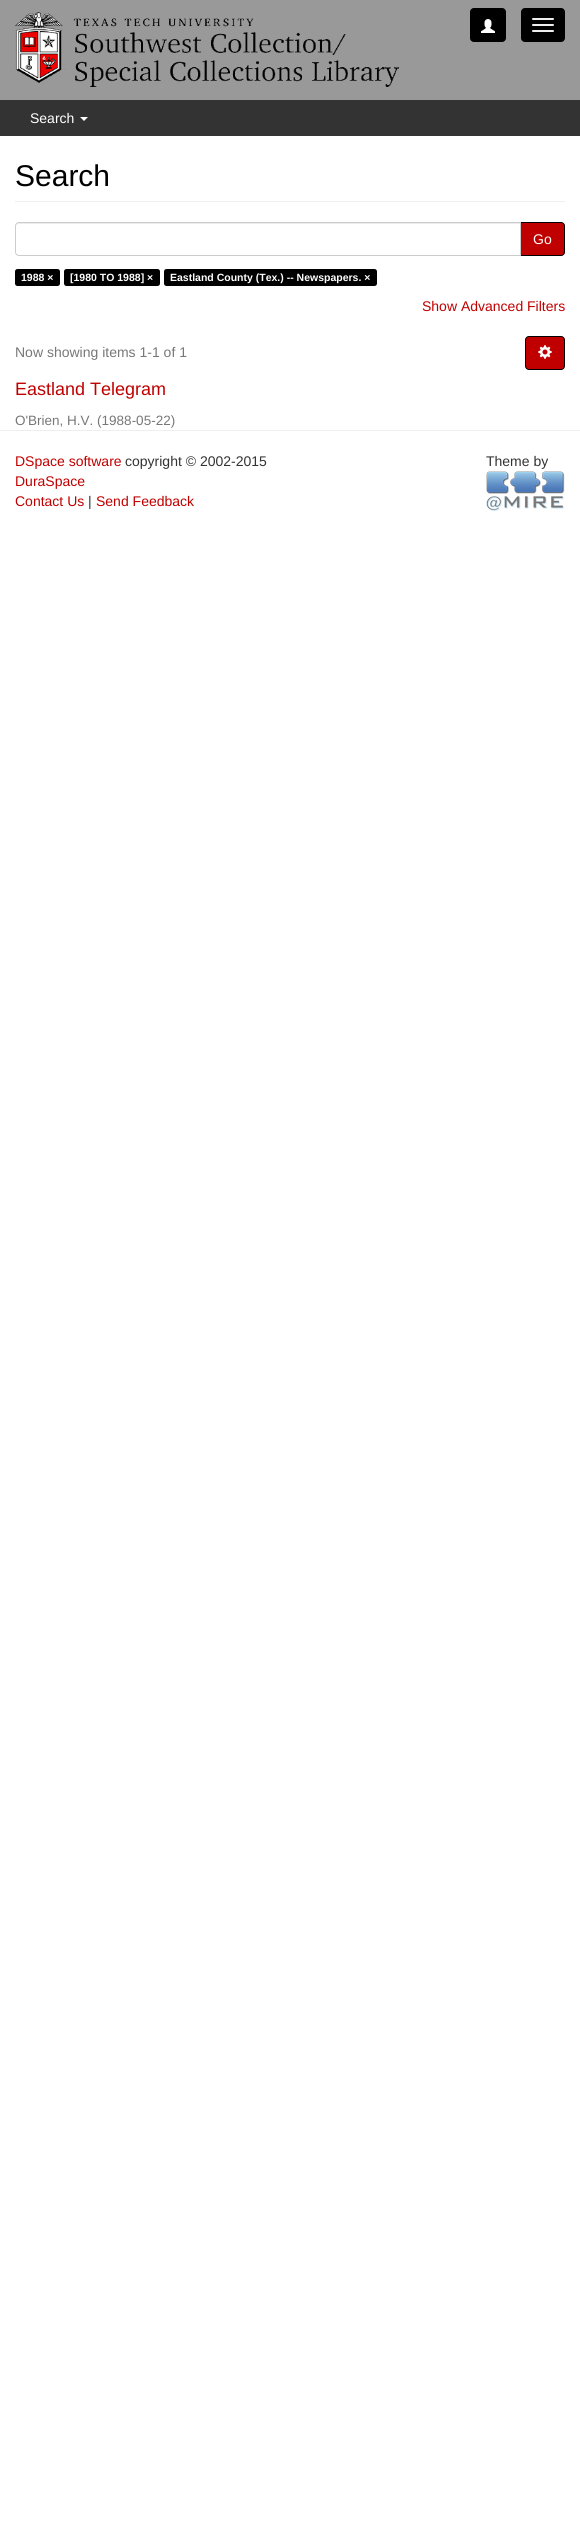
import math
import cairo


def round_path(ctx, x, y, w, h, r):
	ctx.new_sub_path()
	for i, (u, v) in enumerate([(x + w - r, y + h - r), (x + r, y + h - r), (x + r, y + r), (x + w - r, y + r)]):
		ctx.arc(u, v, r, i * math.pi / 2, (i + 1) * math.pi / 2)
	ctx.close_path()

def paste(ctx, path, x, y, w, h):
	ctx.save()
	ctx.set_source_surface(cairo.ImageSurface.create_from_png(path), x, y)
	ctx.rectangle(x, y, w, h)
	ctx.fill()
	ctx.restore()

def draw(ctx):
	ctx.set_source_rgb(1, 1, 1)
	ctx.paint()
	ctx.set_source_rgb(0.6, 0.6, 0.6)
	ctx.rectangle(0, 0, 580, 100)
	ctx.fill()
	paste(ctx, 'media/1.png', 15, 12, 384, 75)
	ctx.set_source_rgb(0, 0, 0)
	round_path(ctx, 470, 8, 36, 34, 4)
	ctx.fill()
	paste(ctx, 'media/2.png', 481, 19, 14, 14)
	round_path(ctx, 521, 8, 44, 34, 4)
	ctx.fill()
	ctx.set_source_rgb(0.933, 0.933, 0.933)
	round_path(ctx, 532, 18, 22, 2, 1)
	ctx.fill()
	round_path(ctx, 532, 24, 22, 2, 1)
	ctx.fill()
	round_path(ctx, 532, 30, 22, 2, 1)
	ctx.fill()
	ctx.set_source_rgb(0.2, 0.2, 0.2)
	ctx.rectangle(0, 100, 580, 36)
	ctx.fill()
	ctx.select_font_face('Liberation Sans')
	ctx.set_font_size(14)
	ctx.set_source_rgb(1, 1, 1)
	ctx.move_to(30, 123)
	ctx.show_text('Search')
	ctx.new_path()
	ctx.move_to(80, 117)
	ctx.line_to(88, 117)
	ctx.line_to(84, 121)
	ctx.close_path()
	ctx.fill()
	ctx.set_source_rgb(0.933, 0.933, 0.933)
	ctx.rectangle(15, 201, 550, 1)
	ctx.fill()
	ctx.set_font_size(30)
	ctx.set_source_rgb(0, 0, 0)
	ctx.move_to(15, 186)
	ctx.show_text('Search')
	ctx.set_source_rgb(0.753, 0, 0)
	ctx.new_path()
	ctx.move_to(520.5, 222.5)
	ctx.line_to(561, 222.5)
	ctx.curve_to(563, 222.5, 564.5, 224, 564.5, 226)
	ctx.line_to(564.5, 252)
	ctx.curve_to(564.5, 254, 563, 255.5, 561, 255.5)
	ctx.line_to(520.5, 255.5)
	ctx.close_path()
	ctx.fill_preserve()
	ctx.set_source_rgb(0, 0, 0)
	ctx.set_line_width(1)
	ctx.stroke()
	ctx.set_source_rgb(1, 1, 1)
	ctx.new_path()
	ctx.move_to(19, 222)
	ctx.line_to(521, 222)
	ctx.line_to(521, 256)
	ctx.line_to(19, 256)
	ctx.curve_to(17, 256, 15, 254, 15, 252)
	ctx.line_to(15, 226)
	ctx.curve_to(15, 224, 17, 222, 19, 222)
	ctx.close_path()
	ctx.fill()
	ctx.set_source_rgb(0.925, 0.925, 0.925)
	ctx.new_path()
	ctx.move_to(19, 224)
	ctx.line_to(520, 224)
	ctx.line_to(520, 223)
	ctx.line_to(19, 223)
	ctx.curve_to(17, 223, 16, 225, 16, 227)
	ctx.curve_to(16, 225, 17, 224, 19, 224)
	ctx.close_path()
	ctx.fill()
	ctx.new_path()
	ctx.move_to(19, 222.5)
	ctx.line_to(520.5, 222.5)
	ctx.line_to(520.5, 255.5)
	ctx.line_to(19, 255.5)
	ctx.curve_to(17, 255.5, 15.5, 254, 15.5, 252)
	ctx.line_to(15.5, 226)
	ctx.curve_to(15.5, 224, 17, 222.5, 19, 222.5)
	ctx.close_path()
	ctx.set_source_rgb(0.8, 0.8, 0.8)
	ctx.stroke()
	ctx.set_font_size(14)
	ctx.set_source_rgb(1, 1, 1)
	ctx.move_to(533, 244)
	ctx.show_text('Go')
	ctx.set_source_rgb(0, 0, 0)
	round_path(ctx, 15, 269, 45, 17, 2.5)
	ctx.fill()
	ctx.select_font_face('Liberation Sans', cairo.FONT_SLANT_NORMAL, cairo.FONT_WEIGHT_BOLD)
	ctx.set_font_size(10.5)
	ctx.set_source_rgb(1, 1, 1)
	ctx.move_to(21, 281)
	ctx.show_text('1988 ×')
	ctx.set_source_rgb(0, 0, 0)
	round_path(ctx, 64, 269, 96, 17, 2.5)
	ctx.fill()
	ctx.set_source_rgb(1, 1, 1)
	ctx.move_to(70, 281)
	ctx.show_text('[1980 TO 1988] ×')
	ctx.set_source_rgb(0, 0, 0)
	round_path(ctx, 164, 269, 213, 17, 2.5)
	ctx.fill()
	ctx.set_source_rgb(1, 1, 1)
	ctx.move_to(170, 281)
	ctx.show_text('Eastland County (Tex.) -- Newspapers. ×')
	ctx.select_font_face('Liberation Sans')
	ctx.set_font_size(14)
	ctx.set_source_rgb(0.753, 0, 0)
	ctx.move_to(422, 311)
	ctx.show_text('Show Advanced Filters')
	ctx.set_source_rgb(0.467, 0.467, 0.467)
	ctx.move_to(15, 357)
	ctx.show_text('Now showing items 1-1 of 1')
	ctx.set_source_rgb(0.753, 0, 0)
	round_path(ctx, 525.5, 336.5, 39, 33, 3.5)
	ctx.fill_preserve()
	ctx.set_source_rgb(0, 0, 0)
	ctx.stroke()
	paste(ctx, 'media/3.png', 538, 345, 14, 14)
	ctx.set_font_size(18)
	ctx.set_source_rgb(0.753, 0, 0)
	ctx.move_to(15, 395)
	ctx.show_text('Eastland Telegram')
	ctx.set_font_size(13.5)
	ctx.set_source_rgb(0.467, 0.467, 0.467)
	ctx.move_to(15, 425)
	ctx.show_text('O\'Brien, H.V. (1988-05-22)')
	ctx.set_source_rgb(0.933, 0.933, 0.933)
	ctx.rectangle(0, 430, 580, 1)
	ctx.fill()
	ctx.set_font_size(14)
	ctx.set_source_rgb(0.753, 0, 0)
	ctx.move_to(15, 466)
	ctx.show_text('DSpace software')
	ctx.set_source_rgb(0.2, 0.2, 0.2)
	ctx.move_to(125, 466)
	ctx.show_text('copyright © 2002-2015')
	ctx.set_source_rgb(0.753, 0, 0)
	ctx.move_to(15, 486)
	ctx.show_text('DuraSpace')
	ctx.move_to(15, 506)
	ctx.show_text('Contact Us')
	ctx.set_source_rgb(0.2, 0.2, 0.2)
	ctx.move_to(88, 506)
	ctx.show_text('|')
	ctx.set_source_rgb(0.753, 0, 0)
	ctx.move_to(96, 506)
	ctx.show_text('Send Feedback')
	ctx.set_source_rgb(0.2, 0.2, 0.2)
	ctx.move_to(486, 466)
	ctx.show_text('Theme by')
	paste(ctx, 'media/4.png', 486, 471, 79, 41)


surface = cairo.ImageSurface(cairo.FORMAT_RGB24, 580, 2545)
ctx = cairo.Context(surface)
options = cairo.FontOptions()
options.set_hint_metrics(cairo.HINT_METRICS_OFF)
options.set_hint_style(cairo.HINT_STYLE_NONE)
ctx.set_font_options(options)
ctx.set_miter_limit(4)
draw(ctx)
surface.write_to_png('image.png')
